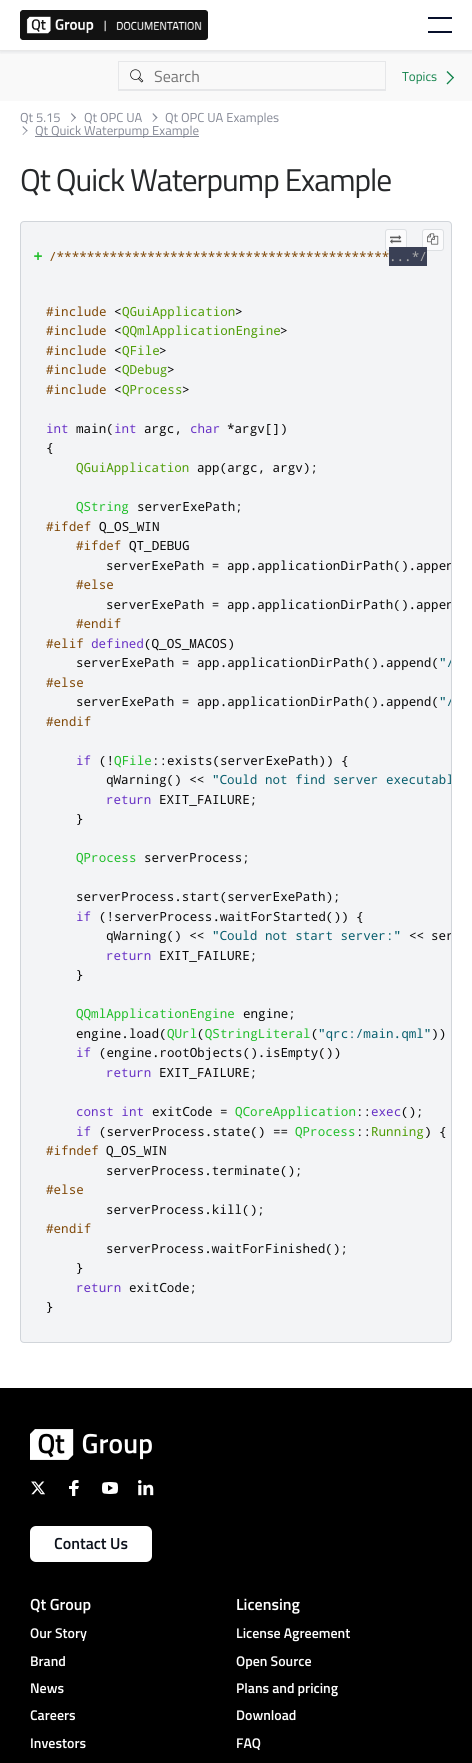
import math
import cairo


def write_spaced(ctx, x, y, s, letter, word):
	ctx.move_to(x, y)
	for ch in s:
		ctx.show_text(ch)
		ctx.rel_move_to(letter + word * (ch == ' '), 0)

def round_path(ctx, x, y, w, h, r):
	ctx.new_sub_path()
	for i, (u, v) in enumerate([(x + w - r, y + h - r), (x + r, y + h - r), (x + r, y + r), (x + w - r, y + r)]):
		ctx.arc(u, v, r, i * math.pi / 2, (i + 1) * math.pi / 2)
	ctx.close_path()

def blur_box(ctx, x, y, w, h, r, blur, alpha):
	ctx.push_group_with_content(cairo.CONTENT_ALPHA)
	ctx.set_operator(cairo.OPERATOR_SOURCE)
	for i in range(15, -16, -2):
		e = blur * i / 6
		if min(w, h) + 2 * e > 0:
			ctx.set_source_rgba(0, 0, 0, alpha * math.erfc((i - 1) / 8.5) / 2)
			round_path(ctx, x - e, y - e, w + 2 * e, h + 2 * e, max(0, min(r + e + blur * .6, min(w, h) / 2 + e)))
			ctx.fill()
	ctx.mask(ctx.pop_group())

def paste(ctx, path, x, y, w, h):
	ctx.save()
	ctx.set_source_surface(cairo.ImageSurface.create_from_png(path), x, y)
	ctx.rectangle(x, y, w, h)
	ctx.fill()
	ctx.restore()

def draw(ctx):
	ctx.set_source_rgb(1, 1, 1)
	ctx.paint()
	ctx.set_source_rgb(0.976, 0.976, 0.976)
	ctx.rectangle(0, 51, 472, 50)
	ctx.fill()
	ctx.save()
	ctx.rectangle(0, 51, 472, 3)
	ctx.clip()
	ctx.set_source_rgb(0.035, 0.063, 0.169)
	blur_box(ctx, 0, 1, 472, 51, 0, 2.5, 0.1)
	ctx.restore()
	ctx.set_source_rgb(0.91, 0.91, 0.91)
	ctx.rectangle(0, 50, 472, 1)
	ctx.fill()
	paste(ctx, 'media/1.png', 20, 10, 188, 30)
	ctx.set_source_rgb(0.035, 0.063, 0.169)
	ctx.rectangle(428, 17, 24, 2)
	ctx.fill()
	ctx.rectangle(428, 31, 24, 2)
	ctx.fill()
	paste(ctx, 'media/2.png', 130, 69, 14, 14)
	ctx.set_source_rgb(0.902, 0.906, 0.914)
	ctx.rectangle(118, 61, 268, 1)
	ctx.rectangle(385, 61, 1, 30)
	ctx.rectangle(118, 89, 268, 2)
	ctx.rectangle(118, 61, 1, 30)
	ctx.fill()
	ctx.select_font_face('Titillium Web')
	ctx.set_font_size(16)
	ctx.set_source_rgb(0.459, 0.459, 0.459)
	ctx.move_to(154, 82)
	ctx.show_text('Search')
	ctx.set_font_size(13)
	ctx.set_source_rgb(0.518, 0.533, 0.584)
	ctx.move_to(20, 122)
	ctx.show_text('Qt 5.15')
	ctx.new_path()
	ctx.move_to(71, 114)
	ctx.line_to(71.5, 113)
	ctx.line_to(76, 117.5)
	ctx.line_to(75, 118.5)
	ctx.close_path()
	ctx.fill()
	ctx.new_path()
	ctx.move_to(71, 121.5)
	ctx.line_to(75, 117)
	ctx.line_to(76, 117.5)
	ctx.line_to(71.5, 122)
	ctx.close_path()
	ctx.fill()
	ctx.move_to(84, 122)
	ctx.show_text('Qt OPC UA')
	ctx.new_path()
	ctx.move_to(152.5, 114)
	ctx.line_to(153, 113)
	ctx.line_to(157.5, 117.5)
	ctx.line_to(156.5, 118.5)
	ctx.close_path()
	ctx.fill()
	ctx.new_path()
	ctx.move_to(152.5, 121.5)
	ctx.line_to(156.5, 117)
	ctx.line_to(157.5, 117.5)
	ctx.line_to(153, 122)
	ctx.close_path()
	ctx.fill()
	ctx.move_to(165, 122)
	ctx.show_text('Qt OPC UA Examples')
	ctx.new_path()
	ctx.move_to(22.5, 127)
	ctx.line_to(23, 126)
	ctx.line_to(27.5, 130.5)
	ctx.line_to(27, 131.5)
	ctx.close_path()
	ctx.fill()
	ctx.new_path()
	ctx.move_to(22.5, 134.5)
	ctx.line_to(27, 130)
	ctx.line_to(27.5, 130.5)
	ctx.line_to(23, 135)
	ctx.close_path()
	ctx.fill()
	ctx.rectangle(35, 136, 164, 1)
	ctx.fill()
	ctx.move_to(35, 135)
	ctx.show_text('Qt Quick Waterpump Example')
	ctx.set_font_size(31.5)
	ctx.set_source_rgb(0.149, 0.157, 0.165)
	write_spaced(ctx, 20, 191, 'Qt Quick Waterpump Example', -1, 0)
	ctx.set_source_rgb(0.953, 0.957, 0.961)
	round_path(ctx, 20.5, 221.5, 431, 1121, 3.5)
	ctx.fill_preserve()
	ctx.set_source_rgb(0.82, 0.835, 0.855)
	ctx.set_line_width(1)
	ctx.stroke()
	ctx.set_source_rgb(0.984, 0.984, 0.988)
	round_path(ctx, 385.5, 229.5, 21, 21, 2.5)
	ctx.fill_preserve()
	ctx.set_source_rgb(0.867, 0.878, 0.89)
	ctx.stroke()
	paste(ctx, 'media/3.png', 390, 235, 12, 9)
	ctx.set_source_rgb(0.984, 0.984, 0.988)
	round_path(ctx, 422.5, 229.5, 21, 21, 2.5)
	ctx.fill_preserve()
	ctx.set_source_rgb(0.867, 0.878, 0.89)
	ctx.stroke()
	paste(ctx, 'media/4.png', 427, 233, 12, 12)
	ctx.select_font_face('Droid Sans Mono', cairo.FONT_SLANT_NORMAL, cairo.FONT_WEIGHT_BOLD)
	ctx.set_font_size(16)
	ctx.set_source_rgb(0.129, 0.745, 0.169)
	ctx.move_to(33, 262)
	ctx.show_text('+')
	ctx.select_font_face('Droid Sans Mono')
	ctx.set_font_size(12.6)
	ctx.set_source_rgb(0.498, 0.278, 0.027)
	ctx.move_to(49, 261)
	ctx.show_text('/********************************************')
	ctx.set_source_rgb(0.227, 0.251, 0.333)
	ctx.rectangle(389, 247, 38, 19)
	ctx.fill()
	ctx.set_source_rgb(0.667, 0.667, 0.667)
	ctx.move_to(389, 261)
	ctx.show_text('...*/')
	ctx.set_source_rgb(0.498, 0.278, 0.027)
	ctx.move_to(46, 316)
	ctx.show_text('#include')
	ctx.set_source_rgb(0.031, 0.031, 0.031)
	ctx.move_to(114, 316)
	ctx.show_text('<')
	ctx.set_source_rgb(0.31, 0.616, 0.031)
	ctx.move_to(122, 316)
	ctx.show_text('QGuiApplication')
	ctx.set_source_rgb(0.031, 0.031, 0.031)
	ctx.move_to(235, 316)
	ctx.show_text('>')
	ctx.set_source_rgb(0.498, 0.278, 0.027)
	ctx.move_to(46, 335)
	ctx.show_text('#include')
	ctx.set_source_rgb(0.031, 0.031, 0.031)
	ctx.move_to(114, 335)
	ctx.show_text('<')
	ctx.set_source_rgb(0.31, 0.616, 0.031)
	ctx.move_to(122, 335)
	ctx.show_text('QQmlApplicationEngine')
	ctx.set_source_rgb(0.031, 0.031, 0.031)
	ctx.move_to(280, 335)
	ctx.show_text('>')
	ctx.set_source_rgb(0.498, 0.278, 0.027)
	ctx.move_to(46, 355)
	ctx.show_text('#include')
	ctx.set_source_rgb(0.031, 0.031, 0.031)
	ctx.move_to(114, 355)
	ctx.show_text('<')
	ctx.set_source_rgb(0.31, 0.616, 0.031)
	ctx.move_to(122, 355)
	ctx.show_text('QFile')
	ctx.set_source_rgb(0.031, 0.031, 0.031)
	ctx.move_to(159, 355)
	ctx.show_text('>')
	ctx.set_source_rgb(0.498, 0.278, 0.027)
	ctx.move_to(46, 374)
	ctx.show_text('#include')
	ctx.set_source_rgb(0.031, 0.031, 0.031)
	ctx.move_to(114, 374)
	ctx.show_text('<')
	ctx.set_source_rgb(0.31, 0.616, 0.031)
	ctx.move_to(122, 374)
	ctx.show_text('QDebug')
	ctx.set_source_rgb(0.031, 0.031, 0.031)
	ctx.move_to(167, 374)
	ctx.show_text('>')
	ctx.set_source_rgb(0.498, 0.278, 0.027)
	ctx.move_to(46, 394)
	ctx.show_text('#include')
	ctx.set_source_rgb(0.031, 0.031, 0.031)
	ctx.move_to(114, 394)
	ctx.show_text('<')
	ctx.set_source_rgb(0.31, 0.616, 0.031)
	ctx.move_to(122, 394)
	ctx.show_text('QProcess')
	ctx.set_source_rgb(0.031, 0.031, 0.031)
	ctx.move_to(182, 394)
	ctx.show_text('>')
	ctx.set_source_rgb(0.404, 0.188, 0.773)
	ctx.move_to(46, 433)
	ctx.show_text('int')
	ctx.set_source_rgb(0.031, 0.031, 0.031)
	ctx.move_to(76, 433)
	ctx.show_text('main(')
	ctx.set_source_rgb(0.404, 0.188, 0.773)
	ctx.move_to(114, 433)
	ctx.show_text('int')
	ctx.set_source_rgb(0.031, 0.031, 0.031)
	ctx.move_to(144, 433)
	ctx.show_text('argc,')
	ctx.set_source_rgb(0.404, 0.188, 0.773)
	ctx.move_to(190, 433)
	ctx.show_text('char')
	ctx.set_source_rgb(0.031, 0.031, 0.031)
	ctx.move_to(227, 433)
	ctx.show_text('*argv[])')
	ctx.move_to(46, 452)
	ctx.show_text('{')
	ctx.set_source_rgb(0.31, 0.616, 0.031)
	ctx.move_to(76, 472)
	ctx.show_text('QGuiApplication')
	ctx.set_source_rgb(0.031, 0.031, 0.031)
	ctx.move_to(197, 472)
	ctx.show_text('app(argc, argv);')
	ctx.set_source_rgb(0.129, 0.745, 0.169)
	ctx.move_to(76, 511)
	ctx.show_text('QString')
	ctx.set_source_rgb(0.031, 0.031, 0.031)
	ctx.move_to(137, 511)
	ctx.show_text('serverExePath;')
	ctx.set_source_rgb(0.498, 0.278, 0.027)
	ctx.move_to(46, 531)
	ctx.show_text('#ifdef')
	ctx.set_source_rgb(0.031, 0.031, 0.031)
	ctx.move_to(99, 531)
	ctx.show_text('Q_OS_WIN')
	ctx.set_source_rgb(0.498, 0.278, 0.027)
	ctx.move_to(76, 550)
	ctx.show_text('#ifdef')
	ctx.set_source_rgb(0.031, 0.031, 0.031)
	ctx.move_to(129, 550)
	ctx.show_text('QT_DEBUG')
	ctx.move_to(106, 570)
	ctx.show_text('serverExePath = app.applicationDirPath().')
	ctx.save()
	round_path(ctx, 21, 222, 430, 1120, 3)
	ctx.clip()
	ctx.move_to(416, 570)
	ctx.show_text('appen')
	ctx.restore()
	ctx.set_source_rgb(0.498, 0.278, 0.027)
	ctx.move_to(76, 589)
	ctx.show_text('#else')
	ctx.set_source_rgb(0.031, 0.031, 0.031)
	ctx.move_to(106, 609)
	ctx.show_text('serverExePath = app.applicationDirPath().')
	ctx.save()
	round_path(ctx, 21, 222, 430, 1120, 3)
	ctx.clip()
	ctx.move_to(416, 609)
	ctx.show_text('appen')
	ctx.restore()
	ctx.set_source_rgb(0.498, 0.278, 0.027)
	ctx.move_to(76, 628)
	ctx.show_text('#endif')
	ctx.move_to(46, 648)
	ctx.show_text('#elif')
	ctx.set_source_rgb(0.404, 0.188, 0.773)
	ctx.move_to(91, 648)
	ctx.show_text('defined')
	ctx.set_source_rgb(0.031, 0.031, 0.031)
	ctx.move_to(144, 648)
	ctx.show_text('(Q_OS_MACOS)')
	ctx.move_to(76, 667)
	ctx.show_text('serverExePath = app.applicationDirPath().append(')
	ctx.save()
	round_path(ctx, 21, 222, 430, 1120, 3)
	ctx.clip()
	ctx.set_source_rgb(0.031, 0.365, 0.424)
	ctx.move_to(439, 667)
	ctx.show_text('"/')
	ctx.restore()
	ctx.set_source_rgb(0.498, 0.278, 0.027)
	ctx.move_to(46, 687)
	ctx.show_text('#else')
	ctx.set_source_rgb(0.031, 0.031, 0.031)
	ctx.move_to(76, 706)
	ctx.show_text('serverExePath = app.applicationDirPath().append(')
	ctx.save()
	round_path(ctx, 21, 222, 430, 1120, 3)
	ctx.clip()
	ctx.set_source_rgb(0.031, 0.365, 0.424)
	ctx.move_to(439, 706)
	ctx.show_text('"/')
	ctx.restore()
	ctx.set_source_rgb(0.498, 0.278, 0.027)
	ctx.move_to(46, 726)
	ctx.show_text('#endif')
	ctx.set_source_rgb(0.404, 0.188, 0.773)
	ctx.move_to(76, 765)
	ctx.show_text('if')
	ctx.set_source_rgb(0.031, 0.031, 0.031)
	ctx.move_to(99, 765)
	ctx.show_text('(!')
	ctx.set_source_rgb(0.129, 0.745, 0.169)
	ctx.move_to(114, 765)
	ctx.show_text('QFile')
	ctx.set_source_rgb(0.031, 0.031, 0.031)
	ctx.move_to(152, 765)
	ctx.show_text('::exists(serverExePath)) {')
	ctx.move_to(106, 784)
	ctx.show_text('qWarning() <<')
	ctx.save()
	round_path(ctx, 21, 222, 430, 1120, 3)
	ctx.clip()
	ctx.set_source_rgb(0.031, 0.365, 0.424)
	ctx.move_to(212, 784)
	ctx.show_text('"Could not find server executabl')
	ctx.restore()
	ctx.set_source_rgb(0.404, 0.188, 0.773)
	ctx.move_to(106, 804)
	ctx.show_text('return')
	ctx.set_source_rgb(0.031, 0.031, 0.031)
	ctx.move_to(159, 804)
	ctx.show_text('EXIT_FAILURE;')
	ctx.move_to(76, 823)
	ctx.show_text('}')
	ctx.set_source_rgb(0.129, 0.745, 0.169)
	ctx.move_to(76, 862)
	ctx.show_text('QProcess')
	ctx.set_source_rgb(0.031, 0.031, 0.031)
	ctx.move_to(144, 862)
	ctx.show_text('serverProcess;')
	ctx.move_to(76, 901)
	ctx.show_text('serverProcess.start(serverExePath);')
	ctx.set_source_rgb(0.404, 0.188, 0.773)
	ctx.move_to(76, 921)
	ctx.show_text('if')
	ctx.set_source_rgb(0.031, 0.031, 0.031)
	ctx.move_to(99, 921)
	ctx.show_text('(!serverProcess.waitForStarted()) {')
	ctx.move_to(106, 940)
	ctx.show_text('qWarning() <<')
	ctx.set_source_rgb(0.031, 0.365, 0.424)
	ctx.move_to(212, 940)
	ctx.show_text('"Could not start server:"')
	ctx.set_source_rgb(0.031, 0.031, 0.031)
	ctx.move_to(409, 940)
	ctx.show_text('<<')
	ctx.save()
	round_path(ctx, 21, 222, 430, 1120, 3)
	ctx.clip()
	ctx.move_to(431, 940)
	ctx.show_text('ser')
	ctx.restore()
	ctx.set_source_rgb(0.404, 0.188, 0.773)
	ctx.move_to(106, 960)
	ctx.show_text('return')
	ctx.set_source_rgb(0.031, 0.031, 0.031)
	ctx.move_to(159, 960)
	ctx.show_text('EXIT_FAILURE;')
	ctx.move_to(76, 979)
	ctx.show_text('}')
	ctx.set_source_rgb(0.129, 0.745, 0.169)
	ctx.move_to(76, 1018)
	ctx.show_text('QQmlApplicationEngine')
	ctx.set_source_rgb(0.031, 0.031, 0.031)
	ctx.move_to(243, 1018)
	ctx.show_text('engine;')
	ctx.move_to(76, 1038)
	ctx.show_text('engine.load(')
	ctx.set_source_rgb(0.129, 0.745, 0.169)
	ctx.move_to(167, 1038)
	ctx.show_text('QUrl QStringLiteral')
	ctx.set_source_rgb(0.031, 0.365, 0.424)
	ctx.move_to(318, 1038)
	ctx.show_text('"qrc:/main.qml"')
	ctx.set_source_rgb(0.031, 0.031, 0.031)
	for x, y, s in [
		(197, 1038, '('),
		(311, 1038, '('),
		(431, 1038, '))'),
	]:
		ctx.move_to(x, y)
		ctx.show_text(s)
	ctx.set_source_rgb(0.404, 0.188, 0.773)
	ctx.move_to(76, 1057)
	ctx.show_text('if')
	ctx.set_source_rgb(0.031, 0.031, 0.031)
	ctx.move_to(99, 1057)
	ctx.show_text('(engine.rootObjects().isEmpty())')
	ctx.set_source_rgb(0.404, 0.188, 0.773)
	ctx.move_to(106, 1077)
	ctx.show_text('return')
	ctx.set_source_rgb(0.031, 0.031, 0.031)
	ctx.move_to(159, 1077)
	ctx.show_text('EXIT_FAILURE;')
	ctx.set_source_rgb(0.404, 0.188, 0.773)
	ctx.move_to(76, 1116)
	ctx.show_text('const int')
	ctx.set_source_rgb(0.031, 0.031, 0.031)
	ctx.move_to(152, 1116)
	ctx.show_text('exitCode =')
	ctx.set_source_rgb(0.129, 0.745, 0.169)
	ctx.move_to(235, 1116)
	ctx.show_text('QCoreApplication')
	ctx.set_source_rgb(0.031, 0.031, 0.031)
	ctx.move_to(356, 1116)
	ctx.show_text('::')
	ctx.set_source_rgb(0.404, 0.188, 0.773)
	ctx.move_to(371, 1116)
	ctx.show_text('exec')
	ctx.set_source_rgb(0.031, 0.031, 0.031)
	ctx.move_to(401, 1116)
	ctx.show_text('();')
	ctx.set_source_rgb(0.404, 0.188, 0.773)
	ctx.move_to(76, 1136)
	ctx.show_text('if')
	ctx.set_source_rgb(0.031, 0.031, 0.031)
	ctx.move_to(99, 1136)
	ctx.show_text('(serverProcess.state() ==')
	ctx.set_source_rgb(0.129, 0.745, 0.169)
	ctx.move_to(295, 1136)
	ctx.show_text('QProcess')
	ctx.set_source_rgb(0.031, 0.031, 0.031)
	ctx.move_to(356, 1136)
	ctx.show_text('::')
	ctx.set_source_rgb(0.31, 0.616, 0.031)
	ctx.move_to(371, 1136)
	ctx.show_text('Running')
	ctx.set_source_rgb(0.031, 0.031, 0.031)
	ctx.move_to(424, 1136)
	ctx.show_text(') {')
	ctx.set_source_rgb(0.498, 0.278, 0.027)
	ctx.move_to(46, 1155)
	ctx.show_text('#ifndef')
	ctx.set_source_rgb(0.031, 0.031, 0.031)
	ctx.move_to(106, 1155)
	ctx.show_text('Q_OS_WIN')
	ctx.move_to(106, 1175)
	ctx.show_text('serverProcess.terminate();')
	ctx.set_source_rgb(0.498, 0.278, 0.027)
	ctx.move_to(46, 1194)
	ctx.show_text('#else')
	ctx.set_source_rgb(0.031, 0.031, 0.031)
	ctx.move_to(106, 1214)
	ctx.show_text('serverProcess.kill();')
	ctx.set_source_rgb(0.498, 0.278, 0.027)
	ctx.move_to(46, 1233)
	ctx.show_text('#endif')
	ctx.set_source_rgb(0.031, 0.031, 0.031)
	ctx.move_to(106, 1253)
	ctx.show_text('serverProcess.waitForFinished();')
	ctx.move_to(76, 1272)
	ctx.show_text('}')
	ctx.set_source_rgb(0.404, 0.188, 0.773)
	ctx.move_to(76, 1292)
	ctx.show_text('return')
	ctx.set_source_rgb(0.031, 0.031, 0.031)
	ctx.move_to(129, 1292)
	ctx.show_text('exitCode;')
	ctx.move_to(46, 1311)
	ctx.show_text('}')
	ctx.select_font_face('Titillium Web')
	ctx.set_font_size(13)
	ctx.set_source_rgb(0.071, 0.514, 0.294)
	ctx.move_to(402, 81)
	ctx.show_text('Topics')
	ctx.new_path()
	ctx.move_to(446.5, 72)
	ctx.line_to(447.5, 71)
	ctx.line_to(454, 77.5)
	ctx.line_to(453, 78.5)
	ctx.close_path()
	ctx.fill()
	ctx.new_path()
	ctx.move_to(446.5, 83.5)
	ctx.line_to(453, 77)
	ctx.line_to(454, 77.5)
	ctx.line_to(447.5, 84.5)
	ctx.close_path()
	ctx.fill()
	ctx.set_source_rgb(0, 0, 0)
	ctx.rectangle(0, 1388, 472, 375)
	ctx.fill()
	paste(ctx, 'media/5.png', 30, 1429, 122, 31)
	paste(ctx, 'media/6.png', 31, 1481, 14, 14)
	paste(ctx, 'media/7.png', 69, 1480, 10, 16)
	paste(ctx, 'media/8.png', 102, 1482, 16, 12)
	paste(ctx, 'media/9.png', 138, 1480, 16, 16)
	ctx.set_source_rgb(1, 1, 1)
	round_path(ctx, 30, 1526, 122, 36, 6)
	ctx.fill()
	ctx.select_font_face('Titillium Web SemiBold')
	ctx.set_font_size(16)
	ctx.set_source_rgb(0.047, 0.071, 0.11)
	ctx.move_to(54, 1549)
	ctx.show_text('Contact Us')
	ctx.set_source_rgb(1, 1, 1)
	ctx.move_to(30, 1610)
	ctx.show_text('Qt Group')
	ctx.set_font_size(14)
	for x, y, s in [
		(30, 1638, 'Our Story'),
		(30, 1666, 'Brand'),
		(30, 1693, 'News'),
		(30, 1720, 'Careers'),
		(30, 1748, 'Investors'),
	]:
		ctx.move_to(x, y)
		ctx.show_text(s)
	ctx.set_font_size(16)
	ctx.move_to(236, 1610)
	ctx.show_text('Licensing')
	ctx.set_font_size(14)
	for x, y, s in [
		(236, 1638, 'License Agreement'),
		(236, 1666, 'Open Source'),
		(236, 1693, 'Plans and pricing'),
		(236, 1720, 'Download'),
		(236, 1748, 'FAQ'),
	]:
		ctx.move_to(x, y)
		ctx.show_text(s)


surface = cairo.ImageSurface(cairo.FORMAT_RGB24, 472, 1763)
ctx = cairo.Context(surface)
options = cairo.FontOptions()
options.set_hint_metrics(cairo.HINT_METRICS_OFF)
options.set_hint_style(cairo.HINT_STYLE_NONE)
ctx.set_font_options(options)
ctx.set_miter_limit(4)
draw(ctx)
surface.write_to_png('image.png')
